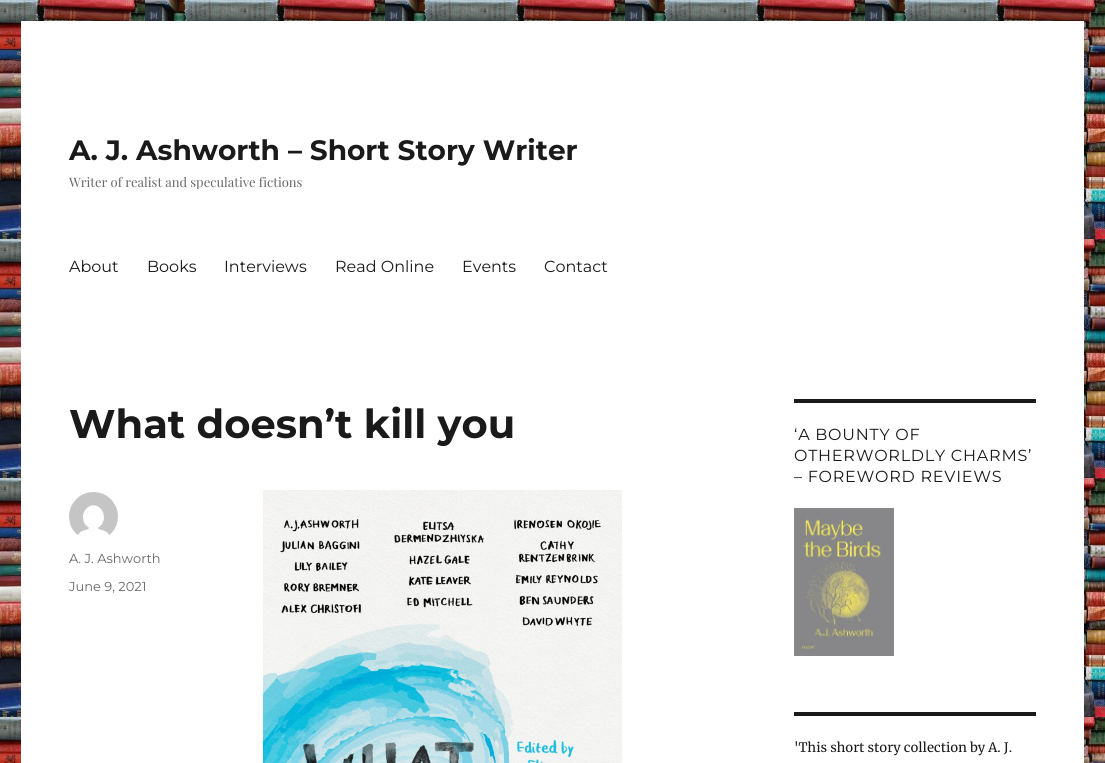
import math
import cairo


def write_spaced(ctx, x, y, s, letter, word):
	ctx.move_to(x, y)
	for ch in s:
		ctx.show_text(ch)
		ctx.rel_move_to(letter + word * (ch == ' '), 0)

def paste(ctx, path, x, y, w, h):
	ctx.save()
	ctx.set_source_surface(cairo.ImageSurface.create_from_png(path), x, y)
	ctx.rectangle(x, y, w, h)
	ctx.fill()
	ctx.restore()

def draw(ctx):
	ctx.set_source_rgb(1, 1, 1)
	ctx.paint()
	paste(ctx, 'media/1.png', 0, 0, 1105, 763)
	ctx.set_source_rgb(1, 1, 1)
	ctx.rectangle(21, 21, 1063, 742)
	ctx.fill()
	ctx.select_font_face('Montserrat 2 Thin')
	ctx.set_font_size(28)
	ctx.set_source_rgb(0.102, 0.102, 0.102)
	ctx.move_to(69, 160)
	ctx.show_text('A. J. Ashworth – Short Story Writer')
	ctx.save()
	ctx.rectangle(69, 133, 509, 56)
	ctx.clip()
	ctx.select_font_face('Playfair Display')
	ctx.set_font_size(13)
	ctx.set_source_rgb(0.408, 0.408, 0.408)
	ctx.move_to(69, 187)
	ctx.show_text('Writer of realist and speculative fictions')
	ctx.restore()
	ctx.select_font_face('Montserrat Thin')
	ctx.set_font_size(16)
	for x, y, s in [
		(69, 272, 'About'),
		(147, 272, 'Books'),
		(224, 272, 'Interviews'),
		(335, 272, 'Read Online'),
		(462, 272, 'Events'),
		(544, 272, 'Contact'),
	]:
		ctx.move_to(x, y)
		ctx.show_text(s)
	ctx.select_font_face('Montserrat 2 Thin')
	ctx.set_font_size(40)
	ctx.move_to(69, 438)
	ctx.show_text('What doesn’t kill you')
	paste(ctx, 'media/2.png', 69, 492, 49, 45)
	ctx.select_font_face('Montserrat Thin')
	ctx.set_font_size(13)
	ctx.set_source_rgb(0.408, 0.408, 0.408)
	ctx.move_to(69, 563)
	ctx.show_text('A. J. Ashworth')
	ctx.move_to(69, 591)
	ctx.show_text('June 9, 2021')
	paste(ctx, 'media/3.png', 263, 490, 359, 273)
	ctx.set_source_rgb(0.102, 0.102, 0.102)
	ctx.rectangle(794, 399, 242, 4)
	ctx.fill()
	ctx.set_font_size(16)
	for x, y, s in [
		(794, 440, '‘A BOUNTY OF'),
		(794, 461, 'OTHERWORLDLY CHARMS’'),
		(794, 482, '– FOREWORD REVIEWS'),
	]:
		write_spaced(ctx, x, y, s, 0.75, 0)
	paste(ctx, 'media/4.png', 794, 508, 100, 148)
	ctx.rectangle(794, 712, 242, 4)
	ctx.fill()
	ctx.select_font_face('Merriweather')
	ctx.set_font_size(13)
	ctx.move_to(794, 752)
	ctx.show_text('\'This short story collection by A. J.')


surface = cairo.ImageSurface(cairo.FORMAT_RGB24, 1105, 763)
ctx = cairo.Context(surface)
options = cairo.FontOptions()
options.set_hint_metrics(cairo.HINT_METRICS_OFF)
options.set_hint_style(cairo.HINT_STYLE_NONE)
ctx.set_font_options(options)
ctx.set_miter_limit(4)
draw(ctx)
surface.write_to_png('image.png')
